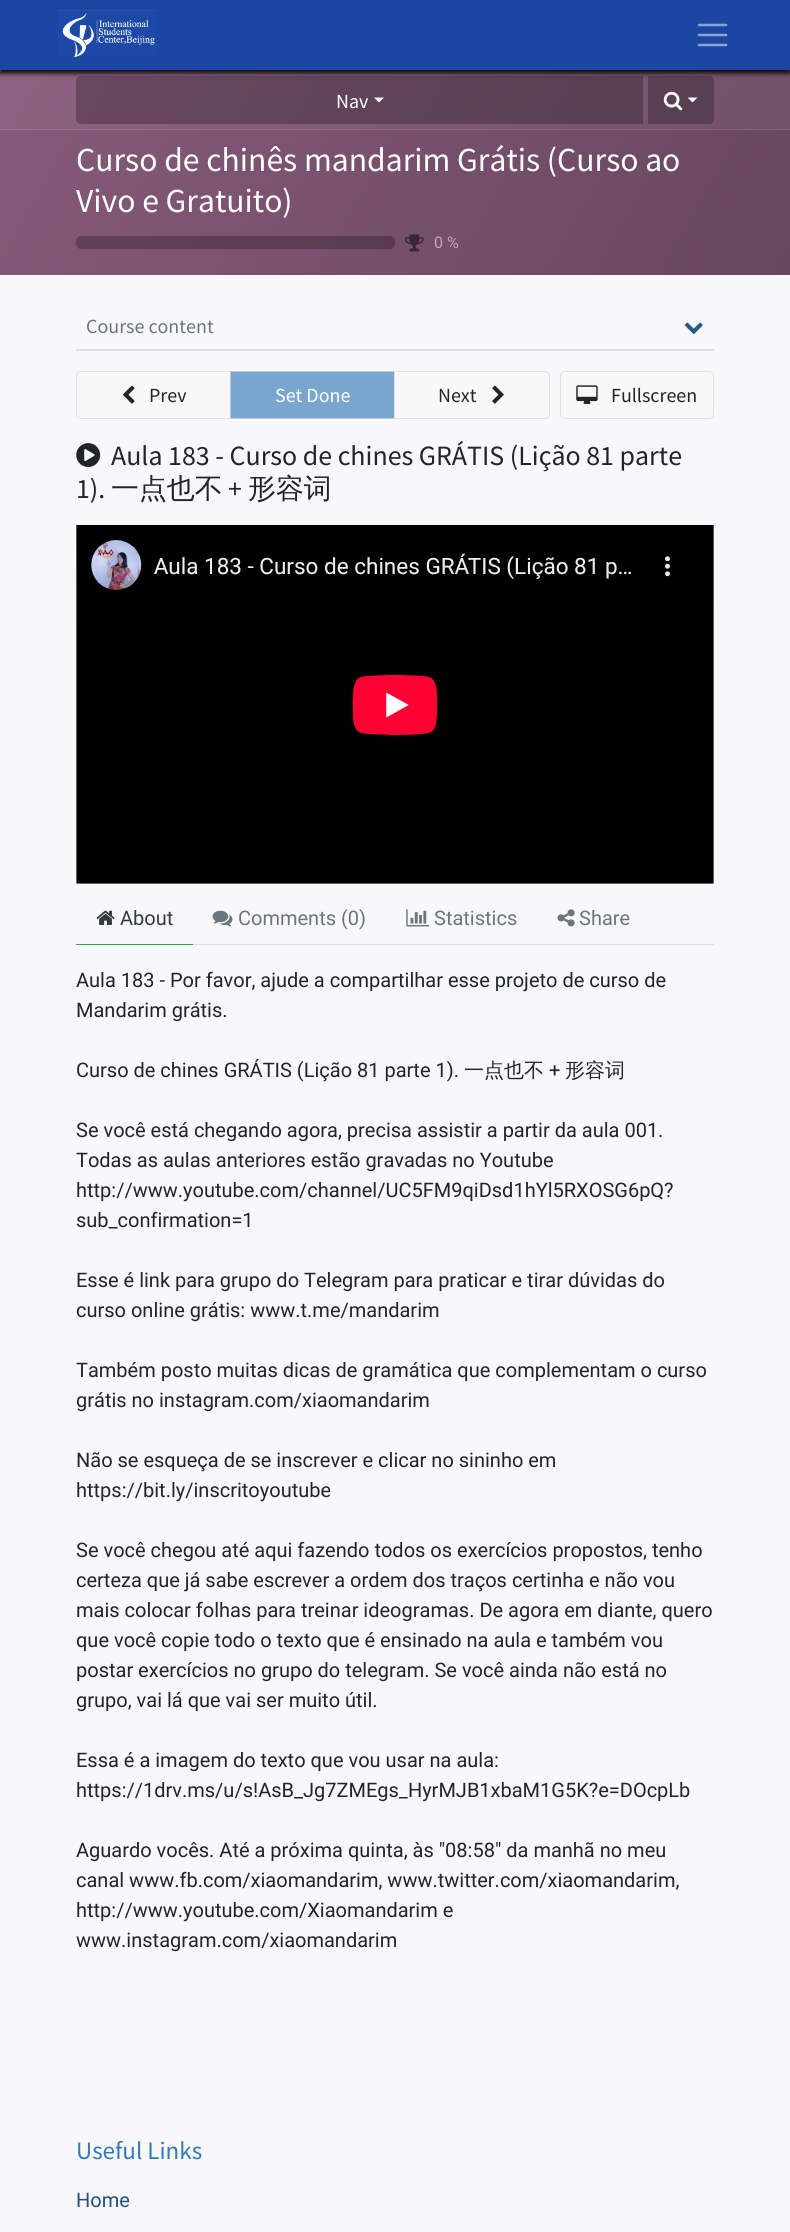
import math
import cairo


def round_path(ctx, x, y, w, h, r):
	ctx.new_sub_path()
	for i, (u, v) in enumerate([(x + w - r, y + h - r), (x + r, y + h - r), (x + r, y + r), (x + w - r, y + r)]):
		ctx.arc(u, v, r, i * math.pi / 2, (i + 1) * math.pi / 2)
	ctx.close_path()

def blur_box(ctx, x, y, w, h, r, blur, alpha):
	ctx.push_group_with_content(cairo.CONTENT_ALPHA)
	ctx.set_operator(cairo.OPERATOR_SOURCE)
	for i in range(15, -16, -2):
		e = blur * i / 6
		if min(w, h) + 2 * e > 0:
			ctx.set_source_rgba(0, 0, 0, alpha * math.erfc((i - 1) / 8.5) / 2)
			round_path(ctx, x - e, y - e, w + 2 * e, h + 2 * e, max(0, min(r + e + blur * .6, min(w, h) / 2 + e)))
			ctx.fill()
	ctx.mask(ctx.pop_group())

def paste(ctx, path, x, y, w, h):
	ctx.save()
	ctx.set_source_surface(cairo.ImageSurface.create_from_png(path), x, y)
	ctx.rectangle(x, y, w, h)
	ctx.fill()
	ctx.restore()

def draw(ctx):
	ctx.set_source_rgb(0.969, 0.969, 0.98)
	ctx.paint()
	gradient = cairo.LinearGradient(54, -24, 736, 369)
	gradient.add_color_stop_rgba(0, 0.553, 0.384, 0.51, 1)
	gradient.add_color_stop_rgba(1, 0.439, 0.31, 0.404, 1)
	ctx.set_source(gradient)
	ctx.rectangle(0, 71, 790, 58)
	ctx.fill()
	gradient = cairo.LinearGradient(54, -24, 736, 369)
	gradient.add_color_stop_rgba(0, 0.596, 0.447, 0.561, 1)
	gradient.add_color_stop_rgba(1, 0.494, 0.38, 0.463, 1)
	ctx.set_source(gradient)
	ctx.rectangle(0, 70, 790, 1)
	ctx.fill()
	ctx.set_source_rgba(0, 0, 0, 0.25)
	ctx.new_path()
	ctx.move_to(81, 76)
	ctx.line_to(643, 76)
	ctx.line_to(643, 124)
	ctx.line_to(81, 124)
	ctx.curve_to(78, 124, 76, 122, 76, 119)
	ctx.line_to(76, 81)
	ctx.curve_to(76, 78, 78, 76, 81, 76)
	ctx.close_path()
	ctx.fill()
	ctx.new_path()
	ctx.move_to(648, 76)
	ctx.line_to(709, 76)
	ctx.curve_to(712, 76, 714, 78, 714, 81)
	ctx.line_to(714, 119)
	ctx.curve_to(714, 122, 712, 124, 709, 124)
	ctx.line_to(648, 124)
	ctx.close_path()
	ctx.fill()
	ctx.set_source_rgb(0, 0, 0)
	blur_box(ctx, 0, 3, 790, 70, 0, 2.5, 1)
	ctx.set_source_rgb(0.106, 0.275, 0.635)
	ctx.rectangle(0, 0, 790, 70)
	ctx.fill()
	paste(ctx, 'media/1.png', 57, 10, 99, 47)
	ctx.new_path()
	ctx.move_to(699, 25)
	ctx.line_to(726, 25)
	ctx.move_to(699, 35)
	ctx.line_to(726, 35)
	ctx.move_to(699, 45)
	ctx.line_to(726, 45)
	ctx.set_source_rgb(0.553, 0.639, 0.82)
	ctx.set_line_width(2.5)
	ctx.set_line_cap(cairo.LINE_CAP_ROUND)
	ctx.stroke()
	gradient = cairo.LinearGradient(54, -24, 736, 369)
	gradient.add_color_stop_rgba(0, 0.529, 0.353, 0.482, 1)
	gradient.add_color_stop_rgba(1, 0.408, 0.275, 0.373, 1)
	ctx.set_source(gradient)
	ctx.rectangle(0, 130, 790, 145)
	ctx.fill()
	gradient = cairo.LinearGradient(54, -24, 736, 369)
	gradient.add_color_stop_rgba(0, 0.596, 0.447, 0.561, 1)
	gradient.add_color_stop_rgba(1, 0.494, 0.38, 0.463, 1)
	ctx.set_source(gradient)
	ctx.rectangle(0, 129, 790, 1)
	ctx.fill()
	ctx.select_font_face('Source Sans Pro')
	ctx.set_font_size(20)
	ctx.set_source_rgb(1, 1, 1)
	ctx.move_to(336, 108)
	ctx.show_text('Nav')
	ctx.new_path()
	ctx.move_to(374, 97.5)
	ctx.line_to(384, 97.5)
	ctx.line_to(379, 102.5)
	ctx.close_path()
	ctx.fill()
	paste(ctx, 'media/2.png', 663, 91, 20, 20)
	ctx.new_path()
	ctx.move_to(687.5, 97.5)
	ctx.line_to(697.5, 97.5)
	ctx.line_to(692.5, 102.5)
	ctx.close_path()
	ctx.fill()
	ctx.set_font_size(33.6)
	ctx.move_to(76, 171)
	ctx.show_text('Curso de chinês mandarim Grátis (Curso ao')
	ctx.move_to(76, 212)
	ctx.show_text('Vivo e Gratuito)')
	ctx.set_source_rgba(0, 0, 0, 0.25)
	round_path(ctx, 76, 236, 319, 13, 5)
	ctx.fill()
	paste(ctx, 'media/3.png', 405, 234, 19, 18)
	ctx.select_font_face('Roboto')
	ctx.set_font_size(16)
	ctx.set_source_rgb(0.729, 0.655, 0.71)
	ctx.move_to(434, 248)
	ctx.show_text('0 %')
	ctx.set_source_rgb(0.871, 0.886, 0.902)
	ctx.rectangle(76, 349, 638, 2)
	ctx.fill()
	ctx.select_font_face('Source Sans Pro')
	ctx.set_font_size(20)
	ctx.set_source_rgb(0.424, 0.459, 0.49)
	ctx.move_to(86, 333)
	ctx.show_text('Course content')
	paste(ctx, 'media/4.png', 684, 322, 19, 13)
	ctx.set_source_rgb(0.969, 0.969, 0.969)
	ctx.new_path()
	ctx.move_to(81, 371.5)
	ctx.line_to(230.5, 371.5)
	ctx.line_to(230.5, 418.5)
	ctx.line_to(81, 418.5)
	ctx.curve_to(78.5, 418.5, 76.5, 416.5, 76.5, 414)
	ctx.line_to(76.5, 376)
	ctx.curve_to(76.5, 373.5, 78.5, 371.5, 81, 371.5)
	ctx.close_path()
	ctx.fill_preserve()
	ctx.set_source_rgb(0.871, 0.886, 0.902)
	ctx.set_line_width(1)
	ctx.set_line_cap(cairo.LINE_CAP_BUTT)
	ctx.stroke()
	paste(ctx, 'media/5.png', 123, 385, 12, 19)
	ctx.set_source_rgb(0.129, 0.145, 0.161)
	ctx.move_to(149, 402)
	ctx.show_text('Prev')
	ctx.set_source_rgba(0.2, 0.478, 0.718, 0.65)
	ctx.rectangle(230, 371, 164, 48)
	ctx.fill()
	ctx.rectangle(230.5, 371.5, 164, 47)
	ctx.set_source_rgba(0.871, 0.886, 0.902, 0.65)
	ctx.stroke()
	ctx.set_source_rgb(1, 1, 1)
	ctx.move_to(275, 402)
	ctx.show_text('Set Done')
	ctx.set_source_rgb(0.969, 0.969, 0.969)
	ctx.new_path()
	ctx.move_to(394.5, 371.5)
	ctx.line_to(545, 371.5)
	ctx.curve_to(547.5, 371.5, 549.5, 373.5, 549.5, 376)
	ctx.line_to(549.5, 414)
	ctx.curve_to(549.5, 416.5, 547.5, 418.5, 545, 418.5)
	ctx.line_to(394.5, 418.5)
	ctx.close_path()
	ctx.fill_preserve()
	ctx.set_source_rgb(0.871, 0.886, 0.902)
	ctx.stroke()
	ctx.set_source_rgb(0.129, 0.145, 0.161)
	ctx.move_to(438, 402)
	ctx.show_text('Next')
	paste(ctx, 'media/6.png', 492, 385, 12, 19)
	ctx.set_source_rgb(0.969, 0.969, 0.969)
	round_path(ctx, 560.5, 371.5, 153, 47, 4.5)
	ctx.fill_preserve()
	ctx.set_source_rgb(0.871, 0.886, 0.902)
	ctx.stroke()
	paste(ctx, 'media/7.png', 576, 385, 22, 19)
	ctx.set_source_rgb(0.129, 0.145, 0.161)
	ctx.move_to(611, 402)
	ctx.show_text('Fullscreen')
	paste(ctx, 'media/8.png', 76, 443, 25, 24)
	ctx.set_font_size(27.9)
	ctx.move_to(111, 465)
	ctx.show_text('Aula 183 - Curso de chines GRÁTIS (Lição 81 parte')
	ctx.move_to(76, 498)
	ctx.show_text('1).')
	ctx.select_font_face('WenQuanYi Zen Hei Medium')
	ctx.move_to(111, 498)
	ctx.show_text('一点也不')
	ctx.select_font_face('Source Sans Pro')
	ctx.move_to(228, 498)
	ctx.show_text('+')
	ctx.select_font_face('WenQuanYi Zen Hei Medium')
	ctx.move_to(248, 498)
	ctx.show_text('形容词')
	paste(ctx, 'media/9.png', 76, 525, 638, 359)
	ctx.set_source_rgb(0.871, 0.886, 0.902)
	ctx.rectangle(193, 944, 521, 1)
	ctx.fill()
	ctx.set_source_rgb(0.157, 0.655, 0.271)
	ctx.rectangle(76, 944, 117, 1)
	ctx.fill()
	paste(ctx, 'media/10.png', 96, 910, 19, 15)
	ctx.select_font_face('Roboto')
	ctx.set_font_size(20)
	ctx.set_source_rgb(0.204, 0.227, 0.251)
	ctx.move_to(120, 925)
	ctx.show_text('About')
	paste(ctx, 'media/11.png', 212, 910, 21, 17)
	ctx.set_source_rgb(0.424, 0.459, 0.49)
	ctx.move_to(238, 925)
	ctx.show_text('Comments (0)')
	paste(ctx, 'media/12.png', 406, 909, 24, 18)
	ctx.move_to(434, 925)
	ctx.show_text('Statistics')
	paste(ctx, 'media/13.png', 557, 909, 18, 18)
	ctx.move_to(579, 925)
	ctx.show_text('Share')
	ctx.set_source_rgb(0.129, 0.145, 0.161)
	for x, y, s in [
		(76, 987, 'Aula 183 - Por favor, ajude a compartilhar esse projeto de curso de'),
		(76, 1017, 'Mandarim grátis.'),
		(76, 1077, 'Curso de chines GRÁTIS (Lição 81 parte 1).'),
	]:
		ctx.move_to(x, y)
		ctx.show_text(s)
	ctx.select_font_face('WenQuanYi Zen Hei Medium')
	ctx.move_to(464, 1077)
	ctx.show_text('一点也不')
	ctx.select_font_face('Roboto')
	ctx.move_to(549, 1077)
	ctx.show_text('+')
	ctx.select_font_face('WenQuanYi Zen Hei Medium')
	ctx.move_to(565, 1077)
	ctx.show_text('形容词')
	ctx.select_font_face('Roboto')
	for x, y, s in [
		(76, 1137, 'Se você está chegando agora, precisa assistir a partir da aula 001.'),
		(76, 1167, 'Todas as aulas anteriores estão gravadas no Youtube'),
		(76, 1197, 'http://www.youtube.com/channel/UC5FM9qiDsd1hYl5RXOSG6pQ?'),
		(76, 1227, 'sub_confirmation=1'),
		(76, 1287, 'Esse é link para grupo do Telegram para praticar e tirar dúvidas do'),
		(76, 1317, 'curso online grátis: www.t.me/mandarim'),
		(76, 1377, 'Também posto muitas dicas de gramática que complementam o curso'),
		(76, 1407, 'grátis no instagram.com/xiaomandarim'),
		(76, 1467, 'Não se esqueça de se inscrever e clicar no sininho em'),
		(76, 1497, 'https://bit.ly/inscritoyoutube'),
		(76, 1557, 'Se você chegou até aqui fazendo todos os exercícios propostos, tenho'),
		(76, 1587, 'certeza que já sabe escrever a ordem dos traços certinha e não vou'),
		(76, 1617, 'mais colocar folhas para treinar ideogramas. De agora em diante, quero'),
		(76, 1647, 'que você copie todo o texto que é ensinado na aula e também vou'),
		(76, 1677, 'postar exercícios no grupo do telegram. Se você ainda não está no'),
		(76, 1707, 'grupo, vai lá que vai ser muito útil.'),
		(76, 1767, 'Essa é a imagem do texto que vou usar na aula:'),
		(76, 1797, 'https://1drv.ms/u/s!AsB_Jg7ZMEgs_HyrMJB1xbaM1G5K?e=DOcpLb'),
		(76, 1857, 'Aguardo vocês. Até a próxima quinta, às "08:58" da manhã no meu'),
		(76, 1887, 'canal www.fb.com/xiaomandarim, www.twitter.com/xiaomandarim,'),
		(76, 1917, 'http://www.youtube.com/Xiaomandarim e'),
		(76, 1947, 'www.instagram.com/xiaomandarim'),
	]:
		ctx.move_to(x, y)
		ctx.show_text(s)
	ctx.select_font_face('Source Sans Pro')
	ctx.set_font_size(25)
	ctx.set_source_rgb(0.2, 0.478, 0.718)
	ctx.move_to(76, 2159)
	ctx.show_text('Useful Links')
	ctx.select_font_face('Roboto')
	ctx.set_font_size(20)
	ctx.set_source_rgb(0.133, 0.322, 0.482)
	ctx.move_to(76, 2207)
	ctx.show_text('Home')


surface = cairo.ImageSurface(cairo.FORMAT_RGB24, 790, 2232)
ctx = cairo.Context(surface)
options = cairo.FontOptions()
options.set_hint_metrics(cairo.HINT_METRICS_OFF)
options.set_hint_style(cairo.HINT_STYLE_NONE)
ctx.set_font_options(options)
ctx.set_miter_limit(4)
draw(ctx)
surface.write_to_png('image.png')
